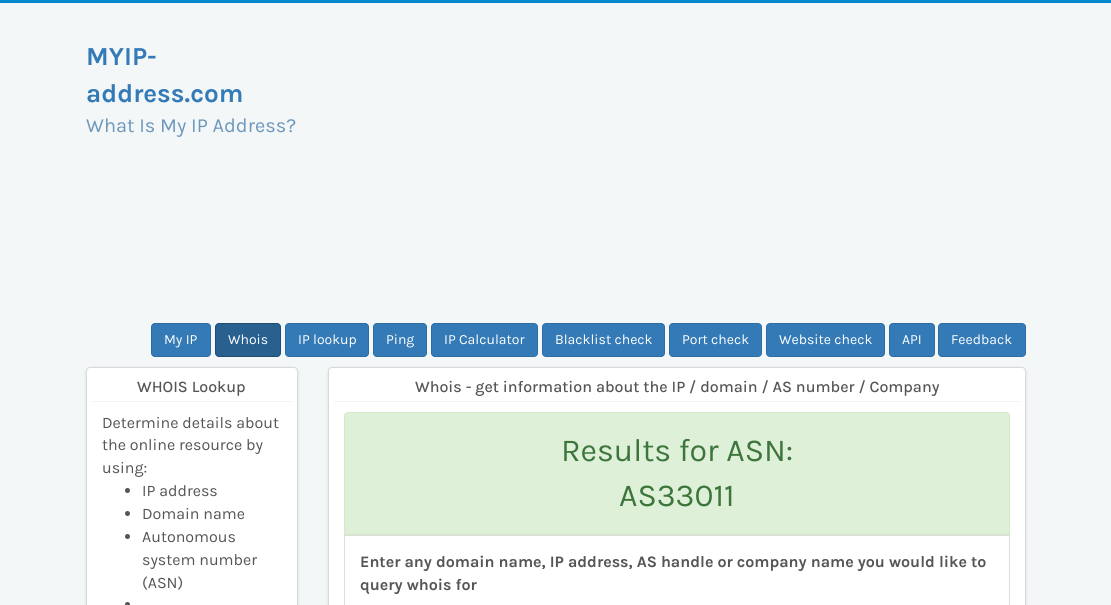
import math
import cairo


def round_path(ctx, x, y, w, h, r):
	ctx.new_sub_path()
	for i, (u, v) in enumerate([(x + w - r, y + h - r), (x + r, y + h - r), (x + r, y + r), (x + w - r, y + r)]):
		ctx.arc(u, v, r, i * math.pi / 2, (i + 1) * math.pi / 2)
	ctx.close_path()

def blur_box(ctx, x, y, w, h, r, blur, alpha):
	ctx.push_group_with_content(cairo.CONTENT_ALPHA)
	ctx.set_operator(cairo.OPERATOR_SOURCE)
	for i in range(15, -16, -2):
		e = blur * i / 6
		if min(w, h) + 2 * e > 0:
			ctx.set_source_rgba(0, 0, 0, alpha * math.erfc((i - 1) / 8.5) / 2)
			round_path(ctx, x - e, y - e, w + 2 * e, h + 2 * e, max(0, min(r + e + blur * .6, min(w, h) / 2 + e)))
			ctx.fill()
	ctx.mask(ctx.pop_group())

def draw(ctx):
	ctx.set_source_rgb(0.957, 0.965, 0.969)
	ctx.paint()
	ctx.set_source_rgb(0, 0.533, 0.8)
	ctx.rectangle(0, 0, 1111, 3)
	ctx.fill()
	ctx.select_font_face('Karla', cairo.FONT_SLANT_NORMAL, cairo.FONT_WEIGHT_BOLD)
	ctx.set_font_size(26)
	ctx.set_source_rgb(0.2, 0.478, 0.718)
	ctx.move_to(86, 65)
	ctx.show_text('MYIP-')
	ctx.move_to(86, 102)
	ctx.show_text('address.com')
	ctx.select_font_face('Karla')
	ctx.set_font_size(20)
	ctx.set_source_rgb(0.427, 0.592, 0.733)
	ctx.move_to(86, 132)
	ctx.show_text('What Is My IP Address?')
	ctx.set_source_rgb(0.2, 0.478, 0.718)
	round_path(ctx, 151.5, 323.5, 59, 33, 3.5)
	ctx.fill_preserve()
	ctx.set_source_rgb(0.18, 0.427, 0.643)
	ctx.set_line_width(1)
	ctx.stroke()
	ctx.set_font_size(14)
	ctx.set_source_rgb(1, 1, 1)
	ctx.move_to(164, 344)
	ctx.show_text('My IP')
	ctx.set_source_rgb(0.157, 0.376, 0.565)
	round_path(ctx, 215.5, 323.5, 65, 33, 3.5)
	ctx.fill_preserve()
	ctx.set_source_rgb(0.125, 0.302, 0.455)
	ctx.stroke()
	ctx.set_source_rgb(1, 1, 1)
	ctx.move_to(228, 344)
	ctx.show_text('Whois')
	ctx.set_source_rgb(0.2, 0.478, 0.718)
	round_path(ctx, 285.5, 323.5, 83, 33, 3.5)
	ctx.fill_preserve()
	ctx.set_source_rgb(0.18, 0.427, 0.643)
	ctx.stroke()
	ctx.set_source_rgb(1, 1, 1)
	ctx.move_to(298, 344)
	ctx.show_text('IP lookup')
	ctx.set_source_rgb(0.2, 0.478, 0.718)
	round_path(ctx, 373.5, 323.5, 53, 33, 3.5)
	ctx.fill_preserve()
	ctx.set_source_rgb(0.18, 0.427, 0.643)
	ctx.stroke()
	ctx.set_source_rgb(1, 1, 1)
	ctx.move_to(386, 344)
	ctx.show_text('Ping')
	ctx.set_source_rgb(0.2, 0.478, 0.718)
	round_path(ctx, 431.5, 323.5, 106, 33, 3.5)
	ctx.fill_preserve()
	ctx.set_source_rgb(0.18, 0.427, 0.643)
	ctx.stroke()
	ctx.set_source_rgb(1, 1, 1)
	ctx.move_to(444, 344)
	ctx.show_text('IP Calculator')
	ctx.set_source_rgb(0.2, 0.478, 0.718)
	round_path(ctx, 542.5, 323.5, 122, 33, 3.5)
	ctx.fill_preserve()
	ctx.set_source_rgb(0.18, 0.427, 0.643)
	ctx.stroke()
	ctx.set_source_rgb(1, 1, 1)
	ctx.move_to(555, 344)
	ctx.show_text('Blacklist check')
	ctx.set_source_rgb(0.2, 0.478, 0.718)
	round_path(ctx, 669.5, 323.5, 92, 33, 3.5)
	ctx.fill_preserve()
	ctx.set_source_rgb(0.18, 0.427, 0.643)
	ctx.stroke()
	ctx.set_source_rgb(1, 1, 1)
	ctx.move_to(682, 344)
	ctx.show_text('Port check')
	ctx.set_source_rgb(0.2, 0.478, 0.718)
	round_path(ctx, 766.5, 323.5, 118, 33, 3.5)
	ctx.fill_preserve()
	ctx.set_source_rgb(0.18, 0.427, 0.643)
	ctx.stroke()
	ctx.set_source_rgb(1, 1, 1)
	ctx.move_to(779, 344)
	ctx.show_text('Website check')
	ctx.set_source_rgb(0.2, 0.478, 0.718)
	round_path(ctx, 889.5, 323.5, 45, 33, 3.5)
	ctx.fill_preserve()
	ctx.set_source_rgb(0.18, 0.427, 0.643)
	ctx.stroke()
	ctx.set_source_rgb(1, 1, 1)
	ctx.move_to(902, 344)
	ctx.show_text('API')
	ctx.set_source_rgb(0.2, 0.478, 0.718)
	round_path(ctx, 938.5, 323.5, 87, 33, 3.5)
	ctx.fill_preserve()
	ctx.set_source_rgb(0.18, 0.427, 0.643)
	ctx.stroke()
	ctx.set_source_rgb(1, 1, 1)
	ctx.move_to(951, 344)
	ctx.show_text('Feedback')
	ctx.set_source_rgb(0, 0, 0)
	blur_box(ctx, 86, 368, 212, 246, 4, 1.5, 0.1)
	ctx.set_source_rgb(1, 1, 1)
	round_path(ctx, 86, 367, 212, 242, 4)
	ctx.fill()
	round_path(ctx, 86.5, 367.5, 211, 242, 3.5)
	ctx.set_source_rgba(0, 0, 0, 0.15)
	ctx.stroke()
	ctx.set_source_rgb(0.957, 0.957, 0.957)
	ctx.rectangle(92, 401, 200, 1)
	ctx.fill()
	ctx.select_font_face('Karla Medium')
	ctx.set_font_size(16)
	ctx.set_source_rgb(0.333, 0.333, 0.333)
	ctx.move_to(137, 392)
	ctx.show_text('WHOIS Lookup')
	ctx.select_font_face('Karla')
	for x, y, s in [
		(102, 428, 'Determine details about'),
		(102, 450, 'the online resource by'),
		(102, 473, 'using:'),
	]:
		ctx.move_to(x, y)
		ctx.show_text(s)
	ctx.new_path()
	ctx.arc(127.5, 490.5, 2.5, 0, 2 * math.pi)
	ctx.fill()
	ctx.move_to(142, 496)
	ctx.show_text('IP address')
	ctx.new_path()
	ctx.arc(127.5, 513.5, 2.5, 0, 2 * math.pi)
	ctx.fill()
	ctx.move_to(142, 519)
	ctx.show_text('Domain name')
	ctx.new_path()
	ctx.arc(127.5, 536.5, 2.5, 0, 2 * math.pi)
	ctx.fill()
	for x, y, s in [
		(142, 542, 'Autonomous'),
		(142, 565, 'system number'),
		(142, 588, '(ASN)'),
	]:
		ctx.move_to(x, y)
		ctx.show_text(s)
	ctx.new_path()
	ctx.arc(127.5, 604.5, 2.5, 0, 2 * math.pi)
	ctx.fill()
	ctx.set_source_rgb(0, 0, 0)
	blur_box(ctx, 328, 368, 698, 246, 4, 1.5, 0.1)
	ctx.set_source_rgb(1, 1, 1)
	round_path(ctx, 328, 367, 698, 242, 4)
	ctx.fill()
	round_path(ctx, 328.5, 367.5, 697, 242, 3.5)
	ctx.set_source_rgba(0, 0, 0, 0.15)
	ctx.stroke()
	ctx.set_source_rgb(0.957, 0.957, 0.957)
	ctx.rectangle(334, 401, 686, 1)
	ctx.fill()
	ctx.select_font_face('Karla Medium')
	ctx.set_source_rgb(0.333, 0.333, 0.333)
	ctx.move_to(415, 392)
	ctx.show_text('Whois - get information about the IP / domain / AS number / Company')
	ctx.set_source_rgb(0.875, 0.941, 0.847)
	ctx.new_path()
	ctx.move_to(348, 412.5)
	ctx.line_to(1006, 412.5)
	ctx.curve_to(1008, 412.5, 1009.5, 414, 1009.5, 416)
	ctx.line_to(1009.5, 534.5)
	ctx.line_to(344.5, 534.5)
	ctx.line_to(344.5, 416)
	ctx.curve_to(344.5, 414, 346, 412.5, 348, 412.5)
	ctx.close_path()
	ctx.fill_preserve()
	ctx.set_source_rgb(0.839, 0.914, 0.776)
	ctx.stroke()
	ctx.select_font_face('Karla')
	ctx.set_font_size(32)
	ctx.set_source_rgb(0.235, 0.463, 0.239)
	ctx.move_to(561, 461)
	ctx.show_text('Results for ASN:')
	ctx.move_to(619, 506)
	ctx.show_text('AS33011')
	ctx.rectangle(344.5, 535.5, 665, 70)
	ctx.set_source_rgb(0.867, 0.867, 0.867)
	ctx.stroke()
	ctx.select_font_face('Karla', cairo.FONT_SLANT_NORMAL, cairo.FONT_WEIGHT_BOLD)
	ctx.set_font_size(16)
	ctx.set_source_rgb(0.333, 0.333, 0.333)
	ctx.move_to(360, 567)
	ctx.show_text('Enter any domain name, IP address, AS handle or company name you would like to')
	ctx.move_to(360, 590)
	ctx.show_text('query whois for')


surface = cairo.ImageSurface(cairo.FORMAT_RGB24, 1111, 605)
ctx = cairo.Context(surface)
options = cairo.FontOptions()
options.set_hint_metrics(cairo.HINT_METRICS_OFF)
options.set_hint_style(cairo.HINT_STYLE_NONE)
ctx.set_font_options(options)
ctx.set_miter_limit(4)
draw(ctx)
surface.write_to_png('image.png')
